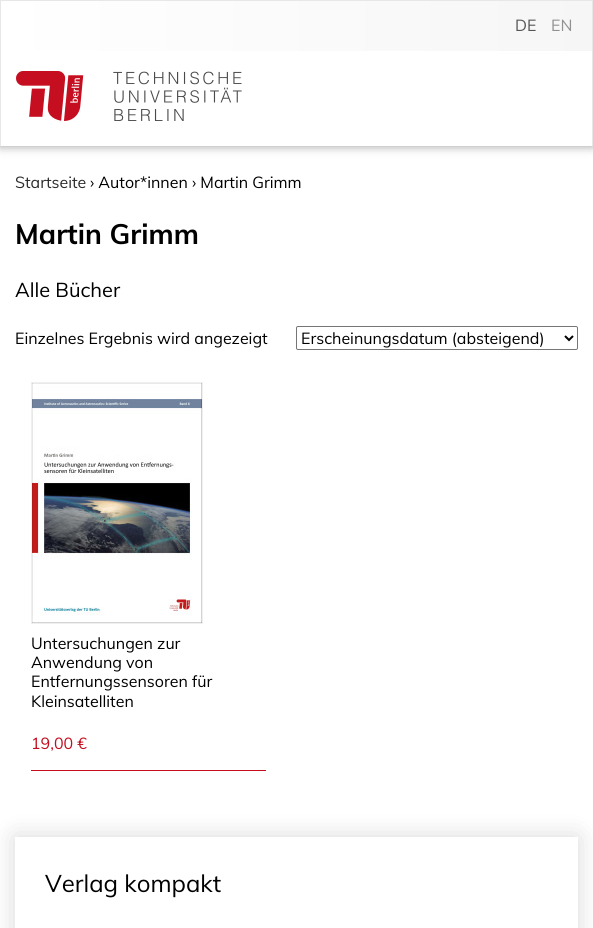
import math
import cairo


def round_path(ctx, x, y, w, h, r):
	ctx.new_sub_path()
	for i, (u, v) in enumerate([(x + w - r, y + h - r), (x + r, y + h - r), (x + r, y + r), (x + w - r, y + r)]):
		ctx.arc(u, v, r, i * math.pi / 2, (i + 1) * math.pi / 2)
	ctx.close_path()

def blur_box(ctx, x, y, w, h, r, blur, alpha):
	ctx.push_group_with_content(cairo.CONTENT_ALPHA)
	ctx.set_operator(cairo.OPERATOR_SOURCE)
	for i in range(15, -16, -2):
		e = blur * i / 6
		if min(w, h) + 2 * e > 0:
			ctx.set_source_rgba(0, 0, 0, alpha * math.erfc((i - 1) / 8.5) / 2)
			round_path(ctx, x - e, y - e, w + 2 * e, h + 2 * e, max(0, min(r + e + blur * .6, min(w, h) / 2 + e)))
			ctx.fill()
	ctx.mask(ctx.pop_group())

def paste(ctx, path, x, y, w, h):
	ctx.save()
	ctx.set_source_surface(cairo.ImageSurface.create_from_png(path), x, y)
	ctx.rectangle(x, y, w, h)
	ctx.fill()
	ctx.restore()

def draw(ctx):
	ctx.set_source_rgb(1, 1, 1)
	ctx.paint()
	ctx.set_source_rgb(0, 0, 0)
	blur_box(ctx, 0, 0, 593, 146, 0, 5, 0.4)
	ctx.set_source_rgb(1, 1, 1)
	ctx.rectangle(1, 51, 591, 95)
	ctx.fill()
	ctx.set_source_rgb(0.906, 0.906, 0.906)
	ctx.rectangle(0, 0, 593, 1)
	ctx.rectangle(592, 0, 1, 146)
	ctx.rectangle(0, 0, 1, 146)
	ctx.fill()
	gradient = cairo.LinearGradient(1, 26, 592, 26)
	gradient.add_color_stop_rgba(0, 1, 1, 1, 1)
	gradient.add_color_stop_rgba(1, 0.965, 0.965, 0.965, 1)
	ctx.set_source(gradient)
	ctx.rectangle(1, 1, 591, 50)
	ctx.fill()
	ctx.select_font_face('Muli')
	ctx.set_font_size(16)
	ctx.set_source_rgb(0.333, 0.333, 0.333)
	ctx.move_to(515, 31)
	ctx.show_text('DE')
	ctx.set_source_rgb(0.569, 0.569, 0.569)
	ctx.move_to(551, 31)
	ctx.show_text('EN')
	paste(ctx, 'media/1.png', 16, 71, 68, 50)
	paste(ctx, 'media/2.png', 113, 71, 129, 50)
	ctx.set_source_rgb(0.173, 0.173, 0.173)
	ctx.move_to(15, 188)
	ctx.show_text('Startseite')
	ctx.set_source_rgb(0, 0, 0)
	ctx.move_to(90, 188)
	ctx.show_text('› Autor*innen › Martin Grimm')
	ctx.select_font_face('Muli', cairo.FONT_SLANT_NORMAL, cairo.FONT_WEIGHT_BOLD)
	ctx.set_font_size(28)
	ctx.move_to(15, 244)
	ctx.show_text('Martin Grimm')
	ctx.select_font_face('Muli')
	ctx.set_font_size(20)
	ctx.move_to(15, 297)
	ctx.show_text('Alle Bücher')
	ctx.set_font_size(16)
	ctx.move_to(15, 344)
	ctx.show_text('Einzelnes Ergebnis wird angezeigt')
	round_path(ctx, 296.5, 326.5, 281, 23, 1.5)
	ctx.set_source_rgb(0.463, 0.463, 0.463)
	ctx.set_line_width(1)
	ctx.stroke()
	ctx.new_path()
	ctx.move_to(565, 336)
	ctx.line_to(569, 340)
	ctx.line_to(573, 336)
	ctx.set_source_rgb(0, 0, 0)
	ctx.set_line_width(2)
	ctx.stroke()
	ctx.move_to(301, 344)
	ctx.show_text('Erscheinungsdatum (absteigend)')
	ctx.set_source_rgb(0.769, 0.051, 0.118)
	ctx.rectangle(31, 770, 235, 1)
	ctx.fill()
	ctx.rectangle(31.5, 382.5, 171, 241)
	ctx.set_source_rgb(0.937, 0.937, 0.937)
	ctx.set_line_width(1)
	ctx.stroke()
	paste(ctx, 'media/3.png', 32, 383, 170, 240)
	ctx.set_source_rgb(0, 0, 0)
	for x, y, s in [
		(31, 649, 'Untersuchungen zur'),
		(31, 668, 'Anwendung von'),
		(31, 687, 'Entfernungssensoren für'),
		(31, 707, 'Kleinsatelliten'),
	]:
		ctx.move_to(x, y)
		ctx.show_text(s)
	ctx.set_source_rgb(0.769, 0.051, 0.118)
	ctx.move_to(31, 749)
	ctx.show_text('19,00 €')
	ctx.save()
	ctx.set_fill_rule(cairo.FILL_RULE_EVEN_ODD)
	ctx.new_path()
	ctx.move_to(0, 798)
	ctx.line_to(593, 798)
	ctx.line_to(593, 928)
	ctx.line_to(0, 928)
	ctx.close_path()
	ctx.move_to(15, 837)
	ctx.line_to(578, 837)
	ctx.line_to(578, 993)
	ctx.line_to(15, 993)
	ctx.close_path()
	ctx.clip()
	ctx.set_source_rgb(0, 0, 0)
	blur_box(ctx, 15, 837, 563, 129, 0, 12.5, 0.15)
	ctx.restore()
	ctx.set_font_size(24)
	ctx.set_source_rgb(0, 0, 0)
	ctx.move_to(45, 892)
	ctx.show_text('Verlag kompakt')


surface = cairo.ImageSurface(cairo.FORMAT_RGB24, 593, 928)
ctx = cairo.Context(surface)
options = cairo.FontOptions()
options.set_hint_metrics(cairo.HINT_METRICS_OFF)
options.set_hint_style(cairo.HINT_STYLE_NONE)
ctx.set_font_options(options)
ctx.set_miter_limit(4)
draw(ctx)
surface.write_to_png('image.png')
